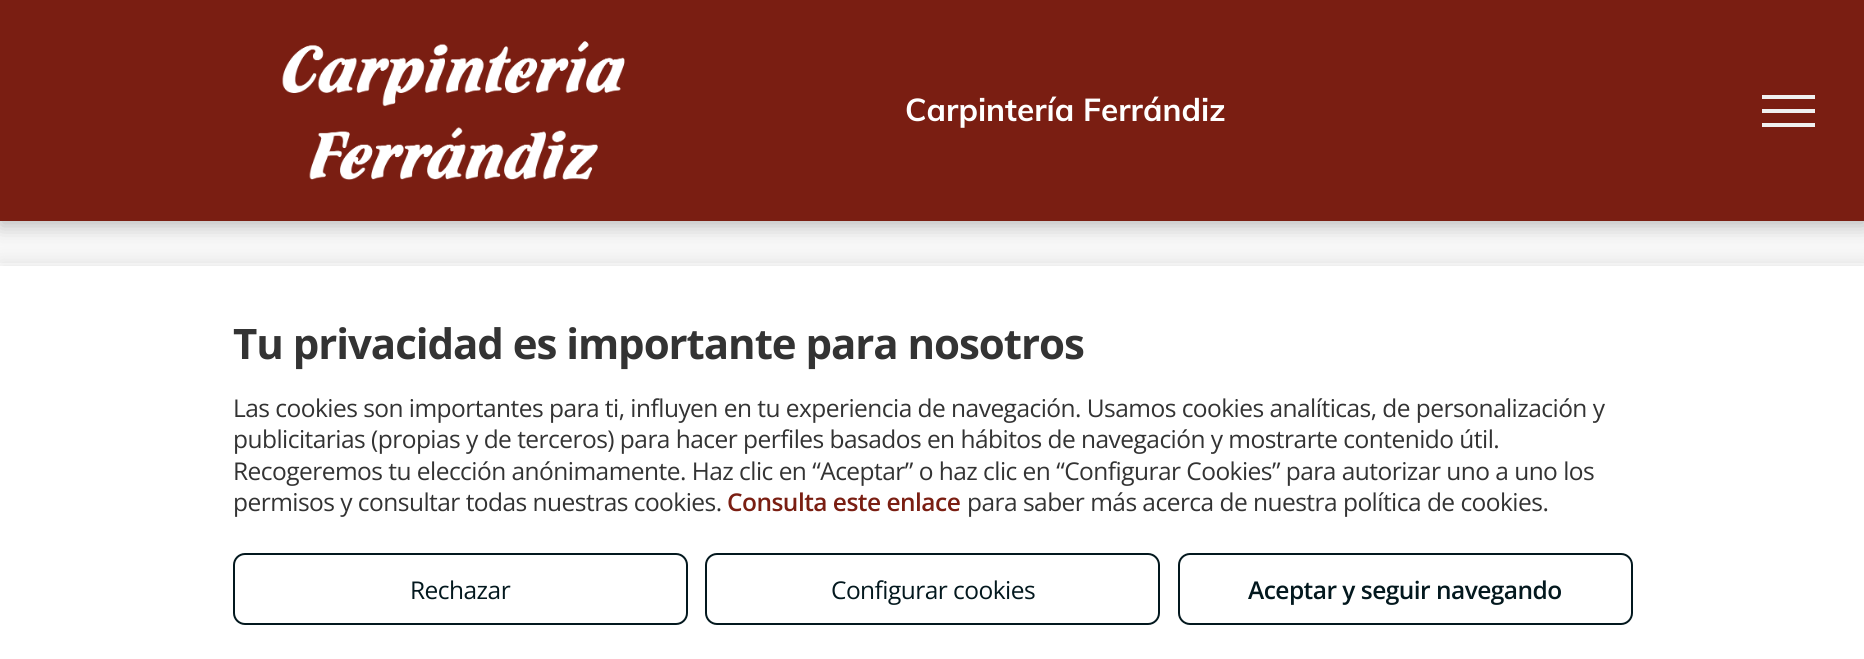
import math
import cairo


def write_spaced(ctx, x, y, s, letter, word):
	ctx.move_to(x, y)
	for ch in s:
		ctx.show_text(ch)
		ctx.rel_move_to(letter + word * (ch == ' '), 0)

def round_path(ctx, x, y, w, h, r):
	ctx.new_sub_path()
	for i, (u, v) in enumerate([(x + w - r, y + h - r), (x + r, y + h - r), (x + r, y + r), (x + w - r, y + r)]):
		ctx.arc(u, v, r, i * math.pi / 2, (i + 1) * math.pi / 2)
	ctx.close_path()

def blur_box(ctx, x, y, w, h, r, blur, alpha):
	ctx.push_group_with_content(cairo.CONTENT_ALPHA)
	ctx.set_operator(cairo.OPERATOR_SOURCE)
	for i in range(15, -16, -2):
		e = blur * i / 6
		if min(w, h) + 2 * e > 0:
			ctx.set_source_rgba(0, 0, 0, alpha * math.erfc((i - 1) / 8.5) / 2)
			round_path(ctx, x - e, y - e, w + 2 * e, h + 2 * e, max(0, min(r + e + blur * .6, min(w, h) / 2 + e)))
			ctx.fill()
	ctx.mask(ctx.pop_group())

def paste(ctx, path, x, y, w, h):
	ctx.save()
	ctx.set_source_surface(cairo.ImageSurface.create_from_png(path), x, y)
	ctx.rectangle(x, y, w, h)
	ctx.fill()
	ctx.restore()

def draw(ctx):
	ctx.set_source_rgb(1, 1, 1)
	ctx.paint()
	ctx.set_source_rgb(0.478, 0.118, 0.071)
	ctx.rectangle(0, 0, 1864, 221)
	ctx.fill()
	ctx.set_source_rgb(0.969, 0.969, 0.969)
	ctx.rectangle(0, 221, 1864, 42)
	ctx.fill()
	ctx.save()
	ctx.set_fill_rule(cairo.FILL_RULE_EVEN_ODD)
	ctx.new_path()
	ctx.move_to(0, 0)
	ctx.line_to(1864, 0)
	ctx.line_to(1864, 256)
	ctx.line_to(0, 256)
	ctx.close_path()
	ctx.move_to(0, 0)
	ctx.line_to(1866, 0)
	ctx.line_to(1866, 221)
	ctx.line_to(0, 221)
	ctx.close_path()
	ctx.clip()
	ctx.set_source_rgb(0, 0, 0)
	blur_box(ctx, 0, 5, 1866, 221, 0, 9.5, 0.25)
	ctx.restore()
	paste(ctx, 'media/1.png', 282, 41, 343, 139)
	ctx.select_font_face('Muli', cairo.FONT_SLANT_NORMAL, cairo.FONT_WEIGHT_BOLD)
	ctx.set_font_size(31.5)
	ctx.set_source_rgb(1, 1, 1)
	ctx.move_to(905, 121)
	ctx.show_text('Carpintería Ferrándiz')
	ctx.set_source_rgb(0.941, 0.941, 0.941)
	ctx.rectangle(1762, 95, 53, 4)
	ctx.rectangle(1762, 109, 53, 4)
	ctx.rectangle(1762, 123, 53, 4)
	ctx.fill()
	ctx.set_source_rgb(0, 0, 0)
	blur_box(ctx, 0, 263, 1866, 393, 0, 9, 0.1)
	ctx.set_source_rgb(1, 1, 1)
	ctx.rectangle(0, 266, 1864, 393)
	ctx.fill()
	ctx.select_font_face('Open Sans', cairo.FONT_SLANT_NORMAL, cairo.FONT_WEIGHT_BOLD)
	ctx.set_font_size(42)
	ctx.set_source_rgb(0.2, 0.2, 0.2)
	write_spaced(ctx, 233, 359, 'Tu privacidad es importante para nosotros', -1.05, 0)
	ctx.select_font_face('Open Sans')
	ctx.set_font_size(24.5)
	for x, y, s in [
		(233, 417, 'Las cookies son importantes para ti, influyen en tu experiencia de navegación. Usamos cookies analíticas, de personalización y'),
		(233, 448, 'publicitarias (propias y de terceros) para hacer perfiles basados en hábitos de navegación y mostrarte contenido útil.'),
		(233, 480, 'Recogeremos tu elección anónimamente. Haz clic en “Aceptar” o haz clic en “Configurar Cookies” para autorizar uno a uno los'),
		(233, 511, 'permisos y consultar todas nuestras cookies.'),
	]:
		write_spaced(ctx, x, y, s, -0.53, 0)
	ctx.select_font_face('Open Sans SemiBold')
	ctx.set_source_rgb(0.478, 0.118, 0.071)
	write_spaced(ctx, 727, 511, 'Consulta este enlace', -0.53, 0)
	ctx.select_font_face('Open Sans')
	ctx.set_source_rgb(0.2, 0.2, 0.2)
	write_spaced(ctx, 967, 511, 'para saber más acerca de nuestra política de cookies.', -0.53, 0)
	round_path(ctx, 234, 554, 453, 70, 11)
	ctx.set_source_rgb(0.012, 0.094, 0.118)
	ctx.stroke()
	write_spaced(ctx, 410, 599, 'Rechazar', -0.53, 0)
	round_path(ctx, 706, 554, 453, 70, 11)
	ctx.stroke()
	write_spaced(ctx, 831, 599, 'Configurar cookies', -0.53, 0)
	round_path(ctx, 1179, 554, 453, 70, 11)
	ctx.stroke()
	ctx.select_font_face('Open Sans SemiBold')
	write_spaced(ctx, 1248, 599, 'Aceptar y seguir navegando', -0.53, 0)


surface = cairo.ImageSurface(cairo.FORMAT_RGB24, 1864, 659)
ctx = cairo.Context(surface)
options = cairo.FontOptions()
options.set_hint_metrics(cairo.HINT_METRICS_OFF)
options.set_hint_style(cairo.HINT_STYLE_NONE)
ctx.set_font_options(options)
ctx.set_miter_limit(4)
draw(ctx)
surface.write_to_png('image.png')
